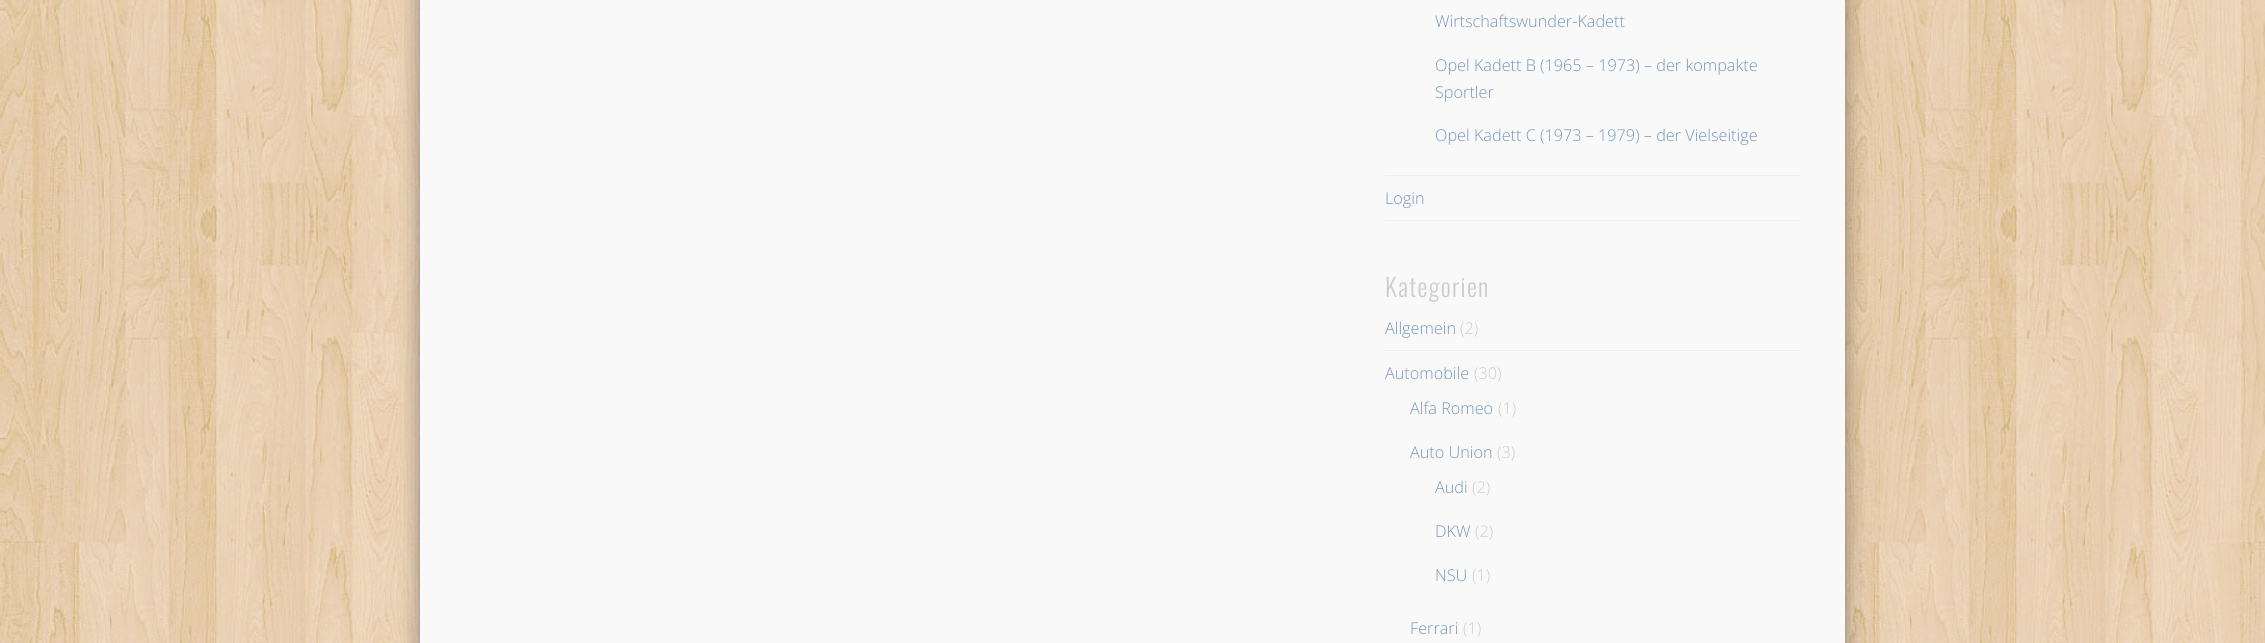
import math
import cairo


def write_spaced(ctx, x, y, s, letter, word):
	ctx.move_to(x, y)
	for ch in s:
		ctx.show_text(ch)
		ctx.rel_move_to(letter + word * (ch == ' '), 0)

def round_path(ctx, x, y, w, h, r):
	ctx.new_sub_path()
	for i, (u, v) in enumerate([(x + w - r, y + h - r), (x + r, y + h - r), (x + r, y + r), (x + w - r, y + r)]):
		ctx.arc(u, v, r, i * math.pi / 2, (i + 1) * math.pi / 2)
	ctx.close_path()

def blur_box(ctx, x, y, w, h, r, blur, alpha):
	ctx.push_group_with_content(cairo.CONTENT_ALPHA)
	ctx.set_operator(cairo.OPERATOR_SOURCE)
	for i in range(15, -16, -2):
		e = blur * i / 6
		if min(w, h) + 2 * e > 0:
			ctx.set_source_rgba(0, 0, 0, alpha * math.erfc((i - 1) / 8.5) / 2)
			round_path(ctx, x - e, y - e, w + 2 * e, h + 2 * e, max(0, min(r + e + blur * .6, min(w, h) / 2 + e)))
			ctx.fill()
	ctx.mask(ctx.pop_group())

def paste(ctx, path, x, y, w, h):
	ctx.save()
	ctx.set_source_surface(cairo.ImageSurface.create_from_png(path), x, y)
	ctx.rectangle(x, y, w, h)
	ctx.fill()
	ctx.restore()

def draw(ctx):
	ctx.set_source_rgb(1, 1, 1)
	ctx.paint()
	paste(ctx, 'media/1.png', 0, 0, 2265, 643)
	ctx.set_source_rgb(0, 0, 0)
	blur_box(ctx, 420, -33, 1425, 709, 0, 11, 0.4)
	ctx.set_source_rgb(0.973, 0.973, 0.973)
	ctx.rectangle(420, 0, 1425, 643)
	ctx.fill()
	ctx.set_source_rgb(0.933, 0.933, 0.933)
	ctx.rectangle(1385, 175, 415, 1)
	ctx.fill()
	ctx.select_font_face('Open Sans Light')
	ctx.set_font_size(16.25)
	ctx.set_source_rgb(0.459, 0.592, 0.725)
	for x, y, s in [
		(1435, 27, 'Wirtschaftswunder-Kadett'),
		(1435, 71, 'Opel Kadett B (1965 – 1973) – der kompakte'),
		(1435, 98, 'Sportler'),
		(1435, 141, 'Opel Kadett C (1973 – 1979) – der Vielseitige'),
	]:
		ctx.move_to(x, y)
		ctx.show_text(s)
	ctx.set_source_rgb(0.933, 0.933, 0.933)
	ctx.rectangle(1385, 220, 415, 1)
	ctx.fill()
	ctx.set_source_rgb(0.459, 0.592, 0.725)
	ctx.move_to(1385, 204)
	ctx.show_text('Login')
	ctx.select_font_face('Oswald Light')
	ctx.set_font_size(25)
	ctx.set_source_rgb(0.8, 0.8, 0.8)
	write_spaced(ctx, 1385, 297, 'Kategorien', 1.25, 0)
	ctx.set_source_rgb(0.933, 0.933, 0.933)
	ctx.rectangle(1385, 350, 415, 1)
	ctx.fill()
	ctx.select_font_face('Open Sans Light')
	ctx.set_font_size(16.25)
	ctx.set_source_rgb(0.459, 0.592, 0.725)
	ctx.move_to(1385, 334)
	ctx.show_text('Allgemein')
	ctx.set_source_rgb(0.8, 0.8, 0.8)
	ctx.move_to(1460, 334)
	ctx.show_text('(2)')
	ctx.set_source_rgb(0.459, 0.592, 0.725)
	ctx.move_to(1385, 379)
	ctx.show_text('Automobile')
	ctx.set_source_rgb(0.8, 0.8, 0.8)
	ctx.move_to(1474, 379)
	ctx.show_text('(30)')
	ctx.set_source_rgb(0.459, 0.592, 0.725)
	ctx.move_to(1410, 414)
	ctx.show_text('Alfa Romeo')
	ctx.set_source_rgb(0.8, 0.8, 0.8)
	ctx.move_to(1498, 414)
	ctx.show_text('(1)')
	ctx.set_source_rgb(0.459, 0.592, 0.725)
	ctx.move_to(1410, 458)
	ctx.show_text('Auto Union')
	ctx.set_source_rgb(0.8, 0.8, 0.8)
	ctx.move_to(1497, 458)
	ctx.show_text('(3)')
	ctx.set_source_rgb(0.459, 0.592, 0.725)
	ctx.move_to(1435, 493)
	ctx.show_text('Audi')
	ctx.set_source_rgb(0.8, 0.8, 0.8)
	ctx.move_to(1472, 493)
	ctx.show_text('(2)')
	ctx.set_source_rgb(0.459, 0.592, 0.725)
	ctx.move_to(1435, 537)
	ctx.show_text('DKW')
	ctx.set_source_rgb(0.8, 0.8, 0.8)
	ctx.move_to(1475, 537)
	ctx.show_text('(2)')
	ctx.set_source_rgb(0.459, 0.592, 0.725)
	ctx.move_to(1435, 581)
	ctx.show_text('NSU')
	ctx.set_source_rgb(0.8, 0.8, 0.8)
	ctx.move_to(1472, 581)
	ctx.show_text('(1)')
	ctx.set_source_rgb(0.459, 0.592, 0.725)
	ctx.move_to(1410, 634)
	ctx.show_text('Ferrari')
	ctx.set_source_rgb(0.8, 0.8, 0.8)
	ctx.move_to(1463, 634)
	ctx.show_text('(1)')


surface = cairo.ImageSurface(cairo.FORMAT_RGB24, 2265, 643)
ctx = cairo.Context(surface)
options = cairo.FontOptions()
options.set_hint_metrics(cairo.HINT_METRICS_OFF)
options.set_hint_style(cairo.HINT_STYLE_NONE)
ctx.set_font_options(options)
ctx.set_miter_limit(4)
draw(ctx)
surface.write_to_png('image.png')
